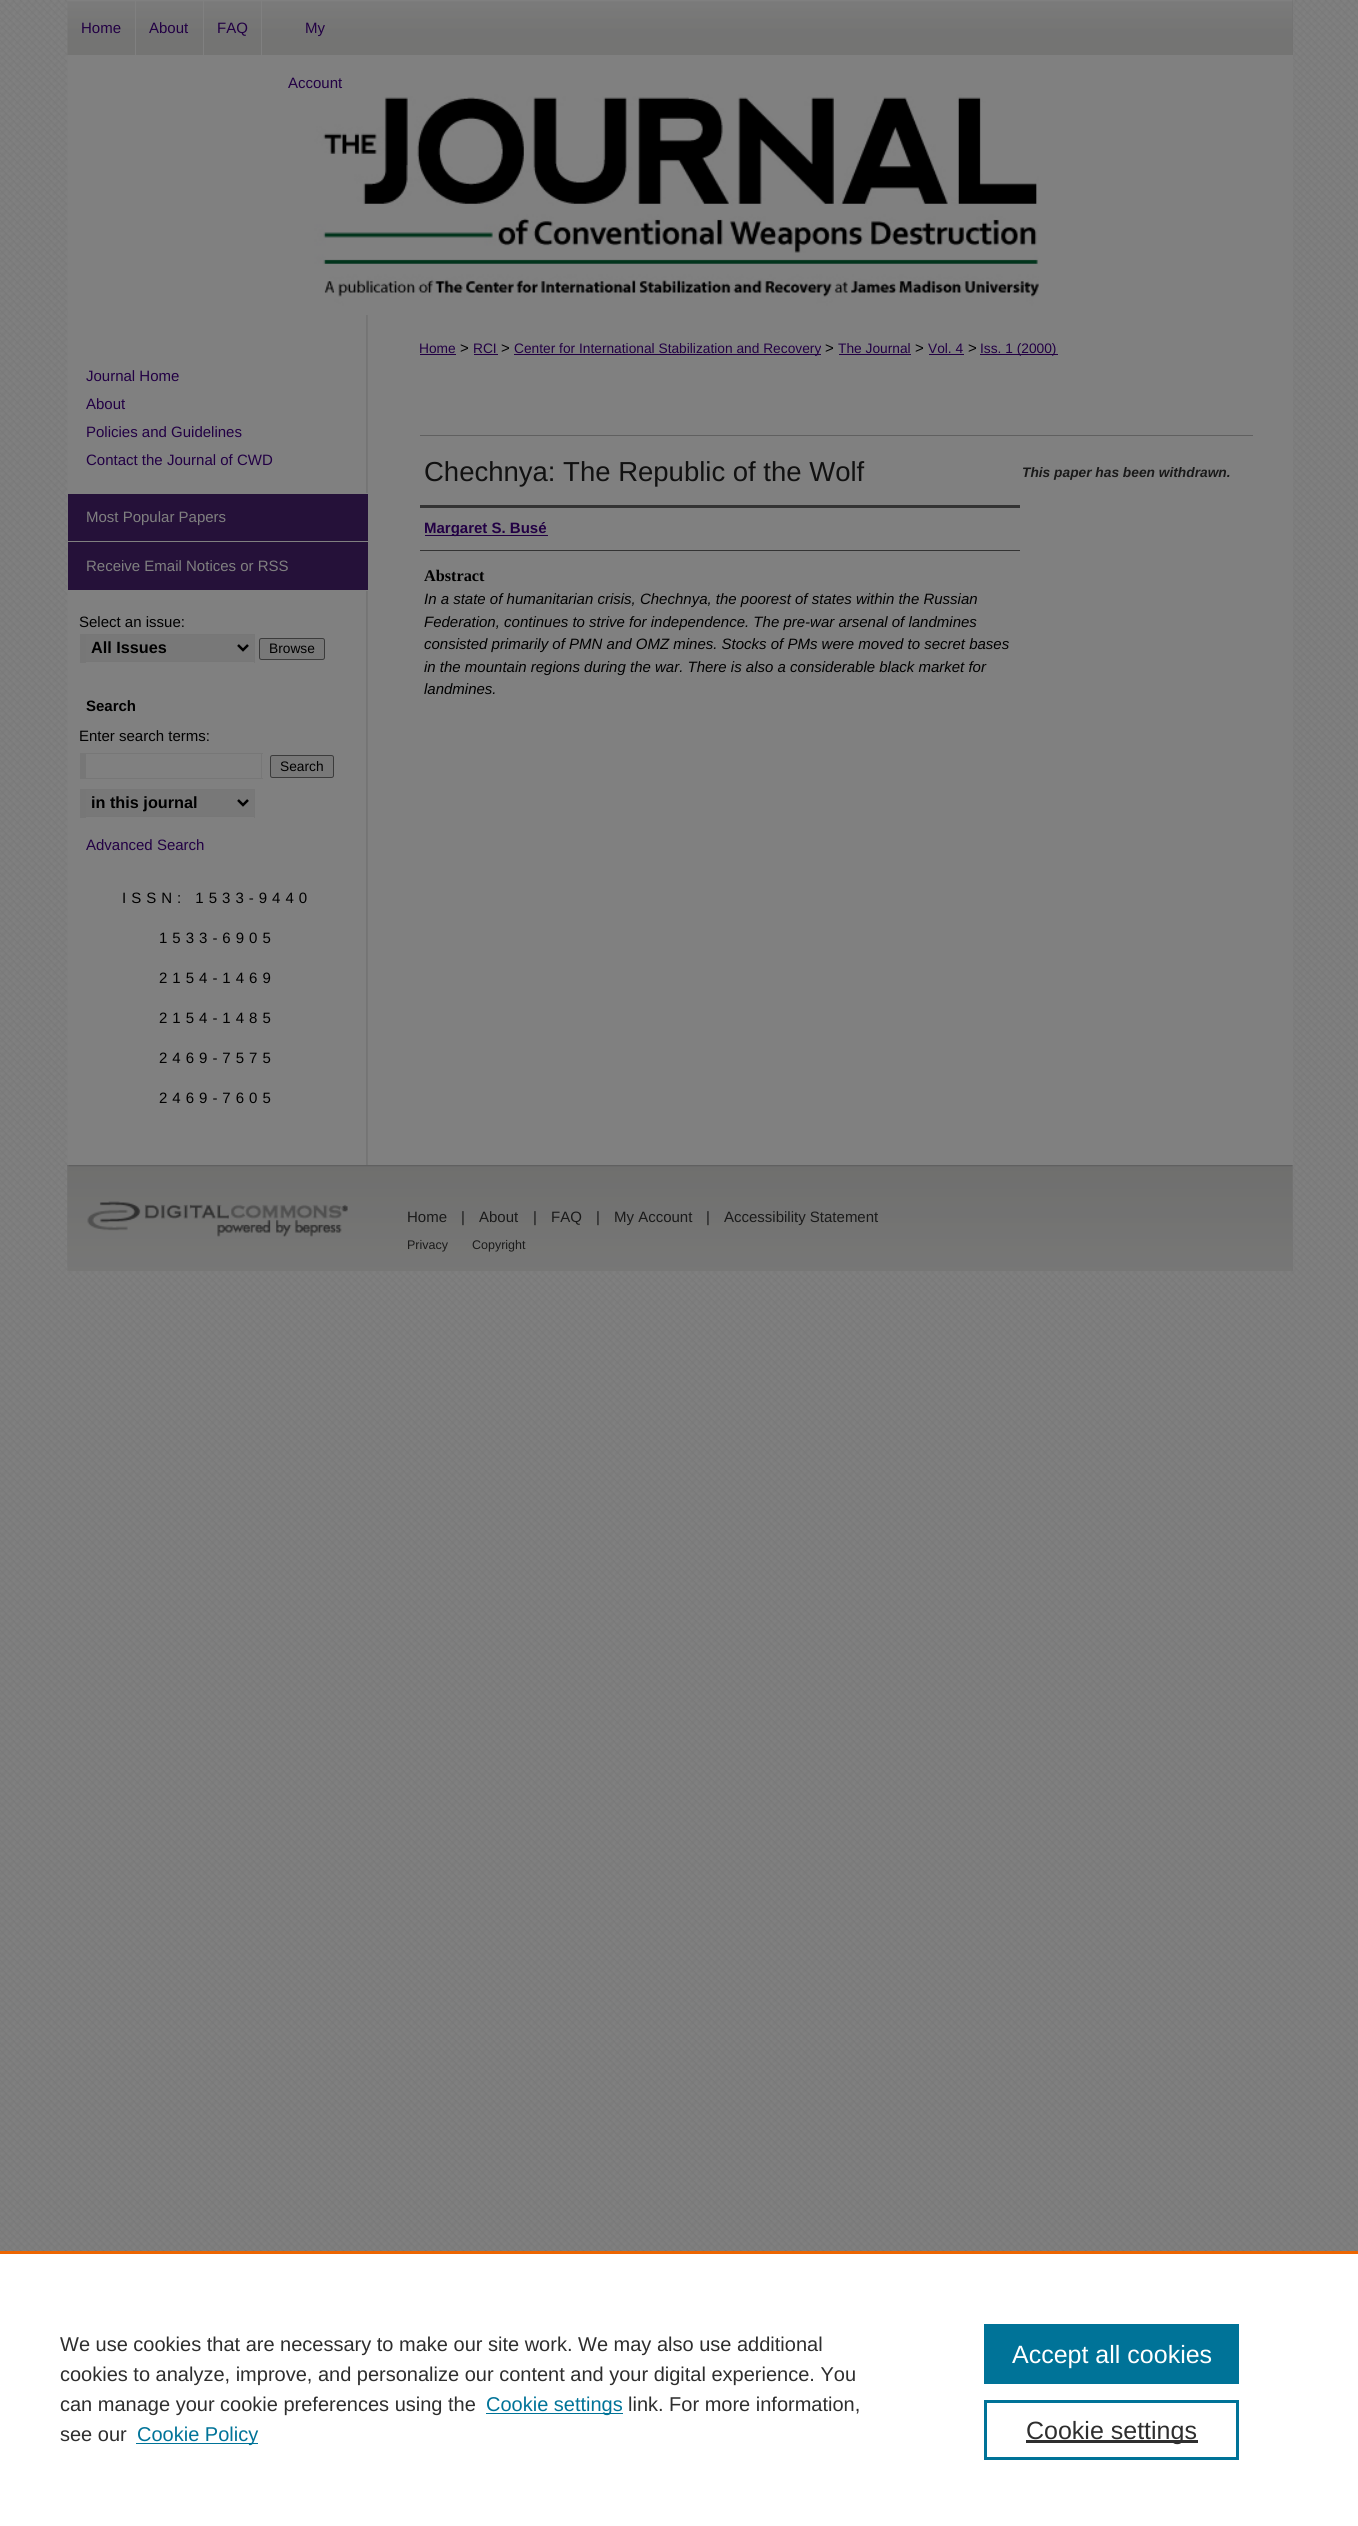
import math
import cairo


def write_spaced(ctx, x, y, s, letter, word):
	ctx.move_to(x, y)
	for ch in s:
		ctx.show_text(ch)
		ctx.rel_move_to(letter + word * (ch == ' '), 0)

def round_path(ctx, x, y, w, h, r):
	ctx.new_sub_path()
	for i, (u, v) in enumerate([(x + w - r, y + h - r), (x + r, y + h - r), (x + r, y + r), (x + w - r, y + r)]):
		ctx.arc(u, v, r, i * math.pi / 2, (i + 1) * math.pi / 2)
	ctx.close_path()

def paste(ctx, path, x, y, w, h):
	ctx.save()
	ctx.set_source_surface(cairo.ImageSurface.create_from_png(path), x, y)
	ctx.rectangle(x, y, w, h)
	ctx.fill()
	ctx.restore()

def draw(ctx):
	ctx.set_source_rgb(1, 1, 1)
	ctx.paint()
	paste(ctx, 'media/1.png', 0, 0, 1358, 2251)
	ctx.set_source_rgb(0.502, 0.502, 0.502)
	ctx.rectangle(68, 55, 1225, 260)
	ctx.fill()
	ctx.set_source_rgb(0.451, 0.451, 0.447)
	ctx.rectangle(1292, 0, 1, 55)
	ctx.fill()
	paste(ctx, 'media/2.png', 67, 0, 1226, 55)
	ctx.set_source_rgb(0.502, 0.502, 0.502)
	ctx.rectangle(135, 0, 1, 55)
	ctx.fill()
	ctx.select_font_face('Liberation Sans')
	ctx.set_font_size(15)
	ctx.set_source_rgb(0.133, 0, 0.267)
	ctx.move_to(81, 33)
	ctx.show_text('Home')
	ctx.set_source_rgb(0.502, 0.502, 0.502)
	ctx.rectangle(203, 0, 1, 55)
	ctx.fill()
	ctx.set_source_rgb(0.133, 0, 0.267)
	ctx.move_to(149, 33)
	ctx.show_text('About')
	ctx.set_source_rgb(0.502, 0.502, 0.502)
	ctx.rectangle(261, 0, 1, 55)
	ctx.fill()
	ctx.set_source_rgb(0.133, 0, 0.267)
	ctx.move_to(217, 33)
	ctx.show_text('FAQ')
	ctx.move_to(305, 33)
	ctx.show_text('My')
	paste(ctx, 'media/3.png', 67, 55, 972, 256)
	ctx.move_to(288, 88)
	ctx.show_text('Account')
	ctx.set_source_rgb(0.502, 0.502, 0.502)
	ctx.rectangle(368, 315, 925, 850)
	ctx.fill()
	paste(ctx, 'media/4.png', 67, 315, 301, 850)
	ctx.set_source_rgb(0.133, 0, 0.267)
	for x, y, s in [
		(86, 381, 'Journal Home'),
		(86, 409, 'About'),
		(86, 437, 'Policies and Guidelines'),
		(86, 465, 'Contact the Journal of CWD'),
	]:
		ctx.move_to(x, y)
		ctx.show_text(s)
	ctx.set_source_rgb(0.502, 0.502, 0.502)
	ctx.rectangle(366, 493, 2, 1)
	ctx.fill()
	ctx.set_source_rgb(0.145, 0.067, 0.224)
	ctx.rectangle(68, 494, 300, 96)
	ctx.fill()
	ctx.set_source_rgb(0.502, 0.502, 0.502)
	ctx.rectangle(68, 541, 300, 1)
	ctx.fill()
	ctx.move_to(86, 522)
	ctx.show_text('Most Popular Papers')
	ctx.rectangle(366, 590, 2, 1)
	ctx.fill()
	ctx.move_to(86, 571)
	ctx.show_text('Receive Email Notices or RSS')
	ctx.set_source_rgb(0, 0, 0)
	ctx.move_to(79, 627)
	ctx.show_text('Select an issue:')
	ctx.set_source_rgb(0.471, 0.471, 0.471)
	ctx.rectangle(86, 635, 168, 26)
	ctx.fill()
	ctx.set_source_rgb(0.467, 0.467, 0.467)
	ctx.rectangle(80, 634, 175, 1)
	ctx.rectangle(254, 634, 1, 29)
	ctx.rectangle(80, 661, 175, 1)
	ctx.rectangle(80, 634, 6, 29)
	ctx.fill()
	ctx.new_path()
	ctx.move_to(238, 645)
	ctx.line_to(243, 650)
	ctx.line_to(248, 645)
	ctx.set_source_rgb(0, 0, 0)
	ctx.set_line_width(2.5)
	ctx.stroke()
	ctx.select_font_face('Liberation Sans', cairo.FONT_SLANT_NORMAL, cairo.FONT_WEIGHT_BOLD)
	ctx.set_font_size(16.25)
	ctx.move_to(91, 653)
	ctx.show_text('All Issues')
	ctx.set_source_rgb(0.471, 0.471, 0.471)
	round_path(ctx, 259.5, 638.5, 65, 21, 2)
	ctx.fill_preserve()
	ctx.set_source_rgb(0.231, 0.231, 0.231)
	ctx.set_line_width(1)
	ctx.stroke()
	ctx.select_font_face('Liberation Sans')
	ctx.set_font_size(13.75)
	ctx.set_source_rgb(0, 0, 0)
	ctx.move_to(269, 653)
	ctx.show_text('Browse')
	ctx.select_font_face('Liberation Sans', cairo.FONT_SLANT_NORMAL, cairo.FONT_WEIGHT_BOLD)
	ctx.set_font_size(15)
	ctx.move_to(86, 711)
	ctx.show_text('Search')
	ctx.select_font_face('Liberation Sans')
	ctx.move_to(79, 741)
	ctx.show_text('Enter search terms:')
	ctx.set_source_rgb(0.467, 0.467, 0.467)
	ctx.rectangle(80, 753, 183, 1)
	ctx.rectangle(261, 753, 1, 26)
	ctx.rectangle(80, 778, 183, 1)
	ctx.rectangle(80, 753, 6, 26)
	ctx.fill()
	ctx.set_source_rgb(0.471, 0.471, 0.471)
	round_path(ctx, 270.5, 755.5, 63, 22, 2)
	ctx.fill_preserve()
	ctx.set_source_rgb(0.231, 0.231, 0.231)
	ctx.stroke()
	ctx.set_font_size(13.75)
	ctx.set_source_rgb(0, 0, 0)
	ctx.move_to(280, 771)
	ctx.show_text('Search')
	ctx.set_source_rgb(0.471, 0.471, 0.471)
	ctx.rectangle(86, 790, 168, 26)
	ctx.fill()
	ctx.set_source_rgb(0.467, 0.467, 0.467)
	ctx.rectangle(80, 789, 175, 1)
	ctx.rectangle(254, 789, 1, 29)
	ctx.rectangle(80, 816, 175, 1)
	ctx.rectangle(80, 789, 6, 29)
	ctx.fill()
	ctx.new_path()
	ctx.move_to(238, 800)
	ctx.line_to(243, 805)
	ctx.line_to(248, 800)
	ctx.set_source_rgb(0, 0, 0)
	ctx.set_line_width(2.5)
	ctx.stroke()
	ctx.select_font_face('Liberation Sans', cairo.FONT_SLANT_NORMAL, cairo.FONT_WEIGHT_BOLD)
	ctx.set_font_size(16.25)
	ctx.move_to(91, 808)
	ctx.show_text('in this journal')
	ctx.select_font_face('Liberation Sans')
	ctx.set_font_size(15)
	ctx.set_source_rgb(0.133, 0, 0.267)
	ctx.move_to(86, 850)
	ctx.show_text('Advanced Search')
	ctx.set_source_rgb(0, 0, 0)
	for x, y, s in [
		(122, 903, 'ISSN: 1533-9440'),
		(159, 943, '1533-6905'),
		(159, 983, '2154-1469'),
		(159, 1023, '2154-1485'),
		(159, 1063, '2469-7575'),
		(159, 1103, '2469-7605'),
	]:
		write_spaced(ctx, x, y, s, 5, 0)
	ctx.set_font_size(13.75)
	ctx.set_source_rgb(0.133, 0, 0.267)
	ctx.move_to(419, 353)
	ctx.show_text('Home')
	ctx.rectangle(420, 354, 36, 1)
	ctx.fill()
	ctx.set_font_size(15)
	ctx.set_source_rgb(0, 0, 0)
	ctx.move_to(460, 353)
	ctx.show_text('>')
	ctx.set_font_size(13.75)
	ctx.set_source_rgb(0.133, 0, 0.267)
	ctx.move_to(473, 353)
	ctx.show_text('RCI')
	ctx.rectangle(474, 354, 24, 1)
	ctx.fill()
	ctx.set_font_size(15)
	ctx.set_source_rgb(0, 0, 0)
	ctx.move_to(501, 353)
	ctx.show_text('>')
	ctx.set_source_rgb(0.133, 0, 0.267)
	ctx.rectangle(514, 354, 307, 1)
	ctx.fill()
	ctx.set_font_size(13.75)
	ctx.move_to(514, 353)
	ctx.show_text('Center for International Stabilization and Recovery')
	ctx.set_font_size(15)
	ctx.set_source_rgb(0, 0, 0)
	ctx.move_to(825, 353)
	ctx.show_text('>')
	ctx.set_font_size(13.75)
	ctx.set_source_rgb(0.133, 0, 0.267)
	ctx.move_to(838, 353)
	ctx.show_text('The Journal')
	ctx.rectangle(839, 354, 72, 1)
	ctx.fill()
	ctx.set_font_size(15)
	ctx.set_source_rgb(0, 0, 0)
	ctx.move_to(915, 353)
	ctx.show_text('>')
	ctx.set_font_size(13.75)
	ctx.set_source_rgb(0.133, 0, 0.267)
	ctx.move_to(928, 353)
	ctx.show_text('Vol. 4')
	ctx.rectangle(929, 354, 35, 1)
	ctx.fill()
	ctx.set_font_size(15)
	ctx.set_source_rgb(0, 0, 0)
	ctx.move_to(968, 353)
	ctx.show_text('>')
	ctx.set_source_rgb(0.133, 0, 0.267)
	ctx.rectangle(980, 354, 78, 1)
	ctx.fill()
	ctx.set_font_size(13.75)
	ctx.move_to(980, 353)
	ctx.show_text('Iss. 1 (2000)')
	ctx.set_source_rgb(0.376, 0.376, 0.376)
	ctx.rectangle(420, 435, 833, 1)
	ctx.fill()
	ctx.set_font_size(27.5)
	ctx.set_source_rgb(0.067, 0.067, 0.067)
	ctx.move_to(424, 481)
	ctx.show_text('Chechnya: The Republic of the Wolf')
	ctx.set_source_rgb(0.2, 0.2, 0.2)
	ctx.rectangle(420, 505, 600, 3)
	ctx.rectangle(420, 550, 600, 1)
	ctx.fill()
	ctx.set_source_rgb(0.133, 0, 0.267)
	ctx.rectangle(425, 535, 123, 1)
	ctx.fill()
	ctx.select_font_face('Liberation Sans', cairo.FONT_SLANT_NORMAL, cairo.FONT_WEIGHT_BOLD)
	ctx.set_font_size(15)
	ctx.move_to(424, 533)
	ctx.show_text('Margaret S. Busé')
	ctx.select_font_face('Liberation Serif', cairo.FONT_SLANT_NORMAL, cairo.FONT_WEIGHT_BOLD)
	ctx.set_font_size(16.25)
	ctx.set_source_rgb(0, 0, 0)
	ctx.move_to(424, 581)
	ctx.show_text('Abstract')
	ctx.select_font_face('Liberation Sans', cairo.FONT_SLANT_ITALIC)
	ctx.set_font_size(15)
	for x, y, s in [
		(424, 604, 'In a state of humanitarian crisis, Chechnya, the poorest of states within the Russian'),
		(424, 627, 'Federation, continues to strive for independence. The pre-war arsenal of landmines'),
		(424, 649, 'consisted primarily of PMN and OMZ mines. Stocks of PMs were moved to secret bases'),
		(424, 672, 'in the mountain regions during the war. There is also a considerable black market for'),
		(424, 694, 'landmines.'),
	]:
		ctx.move_to(x, y)
		ctx.show_text(s)
	ctx.select_font_face('Liberation Sans', cairo.FONT_SLANT_ITALIC, cairo.FONT_WEIGHT_BOLD)
	ctx.set_font_size(13.75)
	ctx.set_source_rgb(0.102, 0.102, 0.102)
	ctx.move_to(1022, 477)
	ctx.show_text('This paper has been withdrawn.')
	ctx.set_source_rgb(0.467, 0.467, 0.467)
	ctx.rectangle(1292, 1165, 1, 106)
	ctx.fill()
	paste(ctx, 'media/5.png', 67, 1165, 1226, 106)
	paste(ctx, 'media/6.png', 67, 1165, 281, 102)
	ctx.select_font_face('Liberation Sans')
	ctx.set_font_size(15)
	ctx.set_source_rgb(0.102, 0.102, 0.102)
	for x, y, s in [
		(407, 1222, 'Home'),
		(461, 1222, '|'),
		(479, 1222, 'About'),
		(533, 1222, '|'),
		(551, 1222, 'FAQ'),
		(596, 1222, '|'),
		(614, 1222, 'My Account'),
		(706, 1222, '|'),
		(724, 1222, 'Accessibility Statement'),
	]:
		ctx.move_to(x, y)
		ctx.show_text(s)
	ctx.set_font_size(12.5)
	ctx.move_to(407, 1249)
	ctx.show_text('Privacy')
	ctx.move_to(472, 1249)
	ctx.show_text('Copyright')
	ctx.set_source_rgb(0.922, 0.396, 0)
	ctx.rectangle(0, 2251, 1358, 3)
	ctx.fill()
	ctx.set_font_size(20)
	ctx.set_source_rgb(0.18, 0.18, 0.18)
	for x, y, s in [
		(60, 2351, 'We use cookies that are necessary to make our site work. We may also use additional'),
		(60, 2381, 'cookies to analyze, improve, and personalize our content and your digital experience. You'),
		(60, 2411, 'can manage your cookie preferences using the'),
	]:
		ctx.move_to(x, y)
		ctx.show_text(s)
	ctx.set_source_rgb(0, 0.451, 0.596)
	ctx.rectangle(486, 2413, 137, 1)
	ctx.fill()
	ctx.move_to(486, 2411)
	ctx.show_text('Cookie settings')
	ctx.set_source_rgb(0.18, 0.18, 0.18)
	ctx.move_to(628, 2411)
	ctx.show_text('link. For more information,')
	ctx.move_to(60, 2441)
	ctx.show_text('see our')
	ctx.set_source_rgb(0, 0.451, 0.596)
	ctx.rectangle(136, 2443, 122, 1)
	ctx.fill()
	ctx.move_to(137, 2441)
	ctx.show_text('Cookie Policy')
	ctx.rectangle(984, 2324, 255, 60)
	ctx.fill()
	ctx.set_font_size(25)
	ctx.set_source_rgb(1, 1, 1)
	ctx.move_to(1012, 2363)
	ctx.show_text('Accept all cookies')
	ctx.rectangle(985.5, 2401.5, 252, 57)
	ctx.set_source_rgb(0, 0.451, 0.596)
	ctx.set_line_width(3)
	ctx.stroke()
	ctx.set_source_rgb(0.18, 0.18, 0.18)
	ctx.rectangle(1026, 2440, 172, 3)
	ctx.fill()
	ctx.move_to(1026, 2439)
	ctx.show_text('Cookie settings')


surface = cairo.ImageSurface(cairo.FORMAT_RGB24, 1358, 2526)
ctx = cairo.Context(surface)
options = cairo.FontOptions()
options.set_hint_metrics(cairo.HINT_METRICS_OFF)
options.set_hint_style(cairo.HINT_STYLE_NONE)
ctx.set_font_options(options)
ctx.set_miter_limit(4)
draw(ctx)
surface.write_to_png('image.png')
